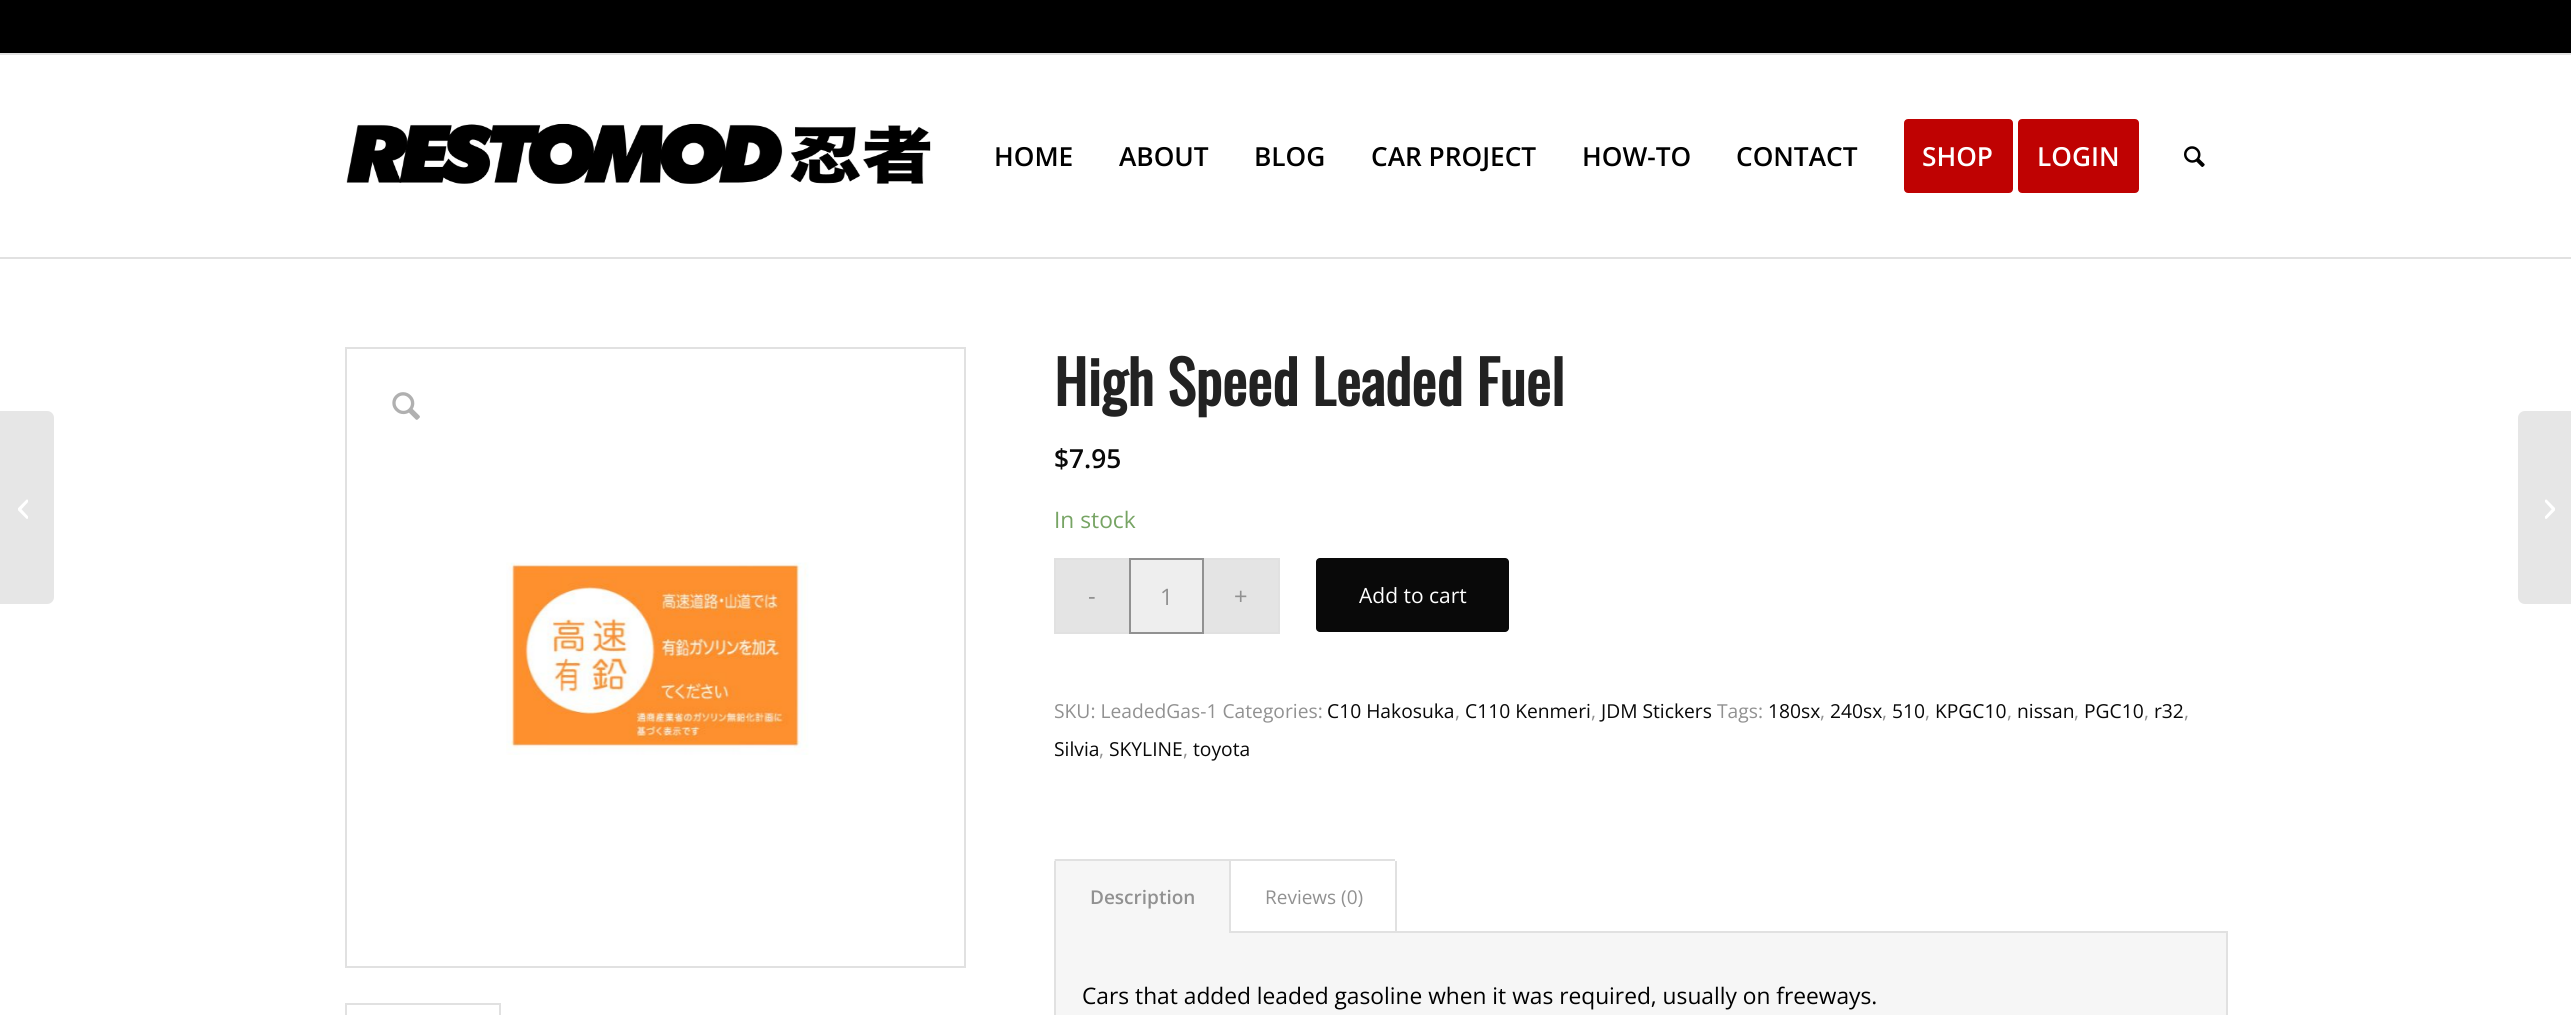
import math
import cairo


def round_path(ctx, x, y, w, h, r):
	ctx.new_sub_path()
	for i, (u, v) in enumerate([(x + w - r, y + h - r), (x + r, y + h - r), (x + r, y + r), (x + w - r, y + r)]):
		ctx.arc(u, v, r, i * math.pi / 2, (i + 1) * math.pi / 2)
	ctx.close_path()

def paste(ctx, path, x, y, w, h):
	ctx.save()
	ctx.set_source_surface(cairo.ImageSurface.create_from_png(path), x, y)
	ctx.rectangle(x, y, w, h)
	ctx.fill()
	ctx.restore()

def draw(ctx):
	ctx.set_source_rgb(1, 1, 1)
	ctx.paint()
	ctx.set_source_rgb(0, 0, 0)
	ctx.rectangle(0, 0, 2571, 53)
	ctx.fill()
	ctx.set_source_rgb(0.882, 0.882, 0.882)
	ctx.rectangle(0, 53, 2571, 2)
	ctx.rectangle(0, 257, 2571, 2)
	ctx.fill()
	paste(ctx, 'media/1.png', 346, 123, 585, 61)
	ctx.select_font_face('Open Sans SemiBold')
	ctx.set_font_size(26.25)
	ctx.set_source_rgb(0, 0, 0)
	for x, y, s in [
		(994, 166, 'HOME'),
		(1119, 166, 'ABOUT'),
		(1254, 166, 'BLOG'),
		(1371, 166, 'CAR PROJECT'),
		(1582, 166, 'HOW-TO'),
		(1736, 166, 'CONTACT'),
	]:
		ctx.move_to(x, y)
		ctx.show_text(s)
	ctx.set_source_rgb(0.749, 0.008, 0.008)
	round_path(ctx, 1906, 121, 105, 70, 2)
	ctx.fill_preserve()
	ctx.set_line_width(4)
	ctx.stroke()
	ctx.set_source_rgb(1, 1, 1)
	ctx.move_to(1922, 166)
	ctx.show_text('SHOP')
	ctx.set_source_rgb(0.749, 0.008, 0.008)
	round_path(ctx, 2020, 121, 117, 70, 2)
	ctx.fill_preserve()
	ctx.stroke()
	ctx.set_source_rgb(1, 1, 1)
	ctx.move_to(2037, 166)
	ctx.show_text('LOGIN')
	paste(ctx, 'media/2.png', 2184, 146, 21, 21)
	ctx.set_source_rgb(0.902, 0.902, 0.902)
	ctx.new_path()
	ctx.move_to(0, 411)
	ctx.line_to(47, 411)
	ctx.curve_to(51, 411, 54, 414, 54, 418)
	ctx.line_to(54, 597)
	ctx.curve_to(54, 601, 51, 604, 47, 604)
	ctx.line_to(0, 604)
	ctx.close_path()
	ctx.fill()
	paste(ctx, 'media/3.png', 18, 499, 10, 20)
	ctx.rectangle(346, 348, 619, 619)
	ctx.set_source_rgb(0.882, 0.882, 0.882)
	ctx.set_line_width(2)
	ctx.stroke()
	paste(ctx, 'media/4.png', 506, 562, 303, 193)
	ctx.rectangle(346, 1004, 154, 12)
	ctx.stroke()
	paste(ctx, 'media/5.png', 392, 392, 28, 28)
	ctx.select_font_face('Oswald', cairo.FONT_SLANT_NORMAL, cairo.FONT_WEIGHT_BOLD)
	ctx.set_font_size(59.5)
	ctx.set_source_rgb(0.133, 0.133, 0.133)
	ctx.move_to(1054, 406)
	ctx.show_text('High Speed Leaded Fuel')
	ctx.select_font_face('Open Sans SemiBold')
	ctx.set_font_size(26.25)
	ctx.set_source_rgb(0.039, 0.039, 0.039)
	ctx.move_to(1054, 468)
	ctx.show_text('$7.95')
	ctx.select_font_face('Open Sans')
	ctx.set_font_size(22.75)
	ctx.set_source_rgb(0.467, 0.643, 0.392)
	ctx.move_to(1054, 528)
	ctx.show_text('In stock')
	ctx.set_source_rgb(0.894, 0.894, 0.894)
	ctx.rectangle(1056, 560, 73, 72)
	ctx.fill()
	ctx.select_font_face('Liberation Sans')
	ctx.set_font_size(23)
	ctx.set_source_rgb(0.569, 0.569, 0.569)
	ctx.move_to(1088, 604)
	ctx.show_text('-')
	ctx.set_source_rgb(0.882, 0.882, 0.882)
	ctx.rectangle(1054, 558, 75, 2)
	ctx.rectangle(1054, 632, 75, 2)
	ctx.rectangle(1054, 558, 2, 76)
	ctx.fill()
	ctx.set_source_rgb(0.933, 0.933, 0.933)
	ctx.rectangle(1130, 559, 73, 74)
	ctx.fill_preserve()
	ctx.set_source_rgb(0.569, 0.569, 0.569)
	ctx.stroke()
	ctx.select_font_face('Open Sans')
	ctx.set_font_size(22.75)
	ctx.move_to(1160, 605)
	ctx.show_text('1')
	ctx.set_source_rgb(0.894, 0.894, 0.894)
	ctx.rectangle(1204, 560, 74, 72)
	ctx.fill()
	ctx.select_font_face('Liberation Sans')
	ctx.set_font_size(23)
	ctx.set_source_rgb(0.569, 0.569, 0.569)
	ctx.move_to(1234, 604)
	ctx.show_text('+')
	ctx.set_source_rgb(0.882, 0.882, 0.882)
	ctx.rectangle(1204, 558, 75, 2)
	ctx.rectangle(1278, 558, 2, 76)
	ctx.rectangle(1204, 632, 75, 2)
	ctx.fill()
	ctx.set_source_rgb(0.039, 0.039, 0.039)
	round_path(ctx, 1316, 558, 193, 74, 4)
	ctx.fill()
	ctx.select_font_face('Open Sans')
	ctx.set_font_size(21)
	ctx.set_source_rgb(1, 1, 1)
	ctx.move_to(1359, 603)
	ctx.show_text('Add to cart')
	ctx.set_font_size(19.25)
	ctx.set_source_rgb(0.569, 0.569, 0.569)
	ctx.move_to(1054, 718)
	ctx.show_text('SKU: LeadedGas-1 Categories:')
	ctx.set_source_rgb(0.039, 0.039, 0.039)
	ctx.move_to(1327, 718)
	ctx.show_text('C10 Hakosuka')
	ctx.set_source_rgb(0.569, 0.569, 0.569)
	ctx.move_to(1455, 718)
	ctx.show_text(',')
	ctx.set_source_rgb(0.039, 0.039, 0.039)
	ctx.move_to(1465, 718)
	ctx.show_text('C110 Kenmeri')
	ctx.set_source_rgb(0.569, 0.569, 0.569)
	ctx.move_to(1591, 718)
	ctx.show_text(',')
	ctx.set_source_rgb(0.039, 0.039, 0.039)
	ctx.move_to(1601, 718)
	ctx.show_text('JDM Stickers')
	ctx.set_source_rgb(0.569, 0.569, 0.569)
	ctx.move_to(1717, 718)
	ctx.show_text('Tags:')
	ctx.set_source_rgb(0.039, 0.039, 0.039)
	ctx.move_to(1768, 718)
	ctx.show_text('180sx')
	ctx.set_source_rgb(0.569, 0.569, 0.569)
	ctx.move_to(1820, 718)
	ctx.show_text(',')
	ctx.set_source_rgb(0.039, 0.039, 0.039)
	ctx.move_to(1830, 718)
	ctx.show_text('240sx')
	ctx.set_source_rgb(0.569, 0.569, 0.569)
	ctx.move_to(1882, 718)
	ctx.show_text(',')
	ctx.set_source_rgb(0.039, 0.039, 0.039)
	ctx.move_to(1892, 718)
	ctx.show_text('510')
	ctx.set_source_rgb(0.569, 0.569, 0.569)
	ctx.move_to(1925, 718)
	ctx.show_text(',')
	ctx.set_source_rgb(0.039, 0.039, 0.039)
	ctx.move_to(1935, 718)
	ctx.show_text('KPGC10')
	ctx.set_source_rgb(0.569, 0.569, 0.569)
	ctx.move_to(2007, 718)
	ctx.show_text(',')
	ctx.set_source_rgb(0.039, 0.039, 0.039)
	ctx.move_to(2017, 718)
	ctx.show_text('nissan')
	ctx.set_source_rgb(0.569, 0.569, 0.569)
	ctx.move_to(2074, 718)
	ctx.show_text(',')
	ctx.set_source_rgb(0.039, 0.039, 0.039)
	ctx.move_to(2084, 718)
	ctx.show_text('PGC10')
	ctx.set_source_rgb(0.569, 0.569, 0.569)
	ctx.move_to(2144, 718)
	ctx.show_text(',')
	ctx.set_source_rgb(0.039, 0.039, 0.039)
	ctx.move_to(2154, 718)
	ctx.show_text('r32')
	ctx.set_source_rgb(0.569, 0.569, 0.569)
	ctx.move_to(2184, 718)
	ctx.show_text(',')
	ctx.set_source_rgb(0.039, 0.039, 0.039)
	ctx.move_to(1054, 756)
	ctx.show_text('Silvia')
	ctx.set_source_rgb(0.569, 0.569, 0.569)
	ctx.move_to(1099, 756)
	ctx.show_text(',')
	ctx.set_source_rgb(0.039, 0.039, 0.039)
	ctx.move_to(1109, 756)
	ctx.show_text('SKYLINE')
	ctx.set_source_rgb(0.569, 0.569, 0.569)
	ctx.move_to(1183, 756)
	ctx.show_text(',')
	ctx.set_source_rgb(0.039, 0.039, 0.039)
	ctx.move_to(1193, 756)
	ctx.show_text('toyota')
	ctx.set_source_rgb(0.961, 0.961, 0.961)
	ctx.rectangle(1055, 932, 1172, 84)
	ctx.fill_preserve()
	ctx.set_source_rgb(0.882, 0.882, 0.882)
	ctx.stroke()
	ctx.set_source_rgb(0.961, 0.961, 0.961)
	ctx.rectangle(1054, 859, 175, 74)
	ctx.fill()
	ctx.set_source_rgb(0.882, 0.882, 0.882)
	ctx.rectangle(1229, 859, 166, 2)
	ctx.rectangle(1055, 859, 175, 2)
	ctx.rectangle(1229, 859, 2, 74)
	ctx.rectangle(1054, 861, 2, 72)
	ctx.fill()
	ctx.select_font_face('Open Sans SemiBold')
	ctx.set_font_size(19)
	ctx.set_source_rgb(0.569, 0.569, 0.569)
	ctx.move_to(1090, 904)
	ctx.show_text('Description')
	ctx.set_source_rgb(0.882, 0.882, 0.882)
	ctx.rectangle(1395, 861, 2, 72)
	ctx.fill()
	ctx.select_font_face('Open Sans')
	ctx.set_source_rgb(0.569, 0.569, 0.569)
	ctx.move_to(1265, 904)
	ctx.show_text('Reviews (0)')
	ctx.set_font_size(22.75)
	ctx.set_source_rgb(0, 0, 0)
	ctx.move_to(1082, 1004)
	ctx.show_text('Cars that added leaded gasoline when it was required, usually on freeways.')
	ctx.set_source_rgb(0.902, 0.902, 0.902)
	ctx.new_path()
	ctx.move_to(2525, 411)
	ctx.line_to(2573, 411)
	ctx.line_to(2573, 604)
	ctx.line_to(2525, 604)
	ctx.curve_to(2521, 604, 2518, 601, 2518, 597)
	ctx.line_to(2518, 418)
	ctx.curve_to(2518, 414, 2521, 411, 2525, 411)
	ctx.close_path()
	ctx.fill()
	paste(ctx, 'media/6.png', 2545, 499, 10, 20)


surface = cairo.ImageSurface(cairo.FORMAT_RGB24, 2571, 1015)
ctx = cairo.Context(surface)
options = cairo.FontOptions()
options.set_hint_metrics(cairo.HINT_METRICS_OFF)
options.set_hint_style(cairo.HINT_STYLE_NONE)
ctx.set_font_options(options)
ctx.set_miter_limit(4)
draw(ctx)
surface.write_to_png('image.png')
